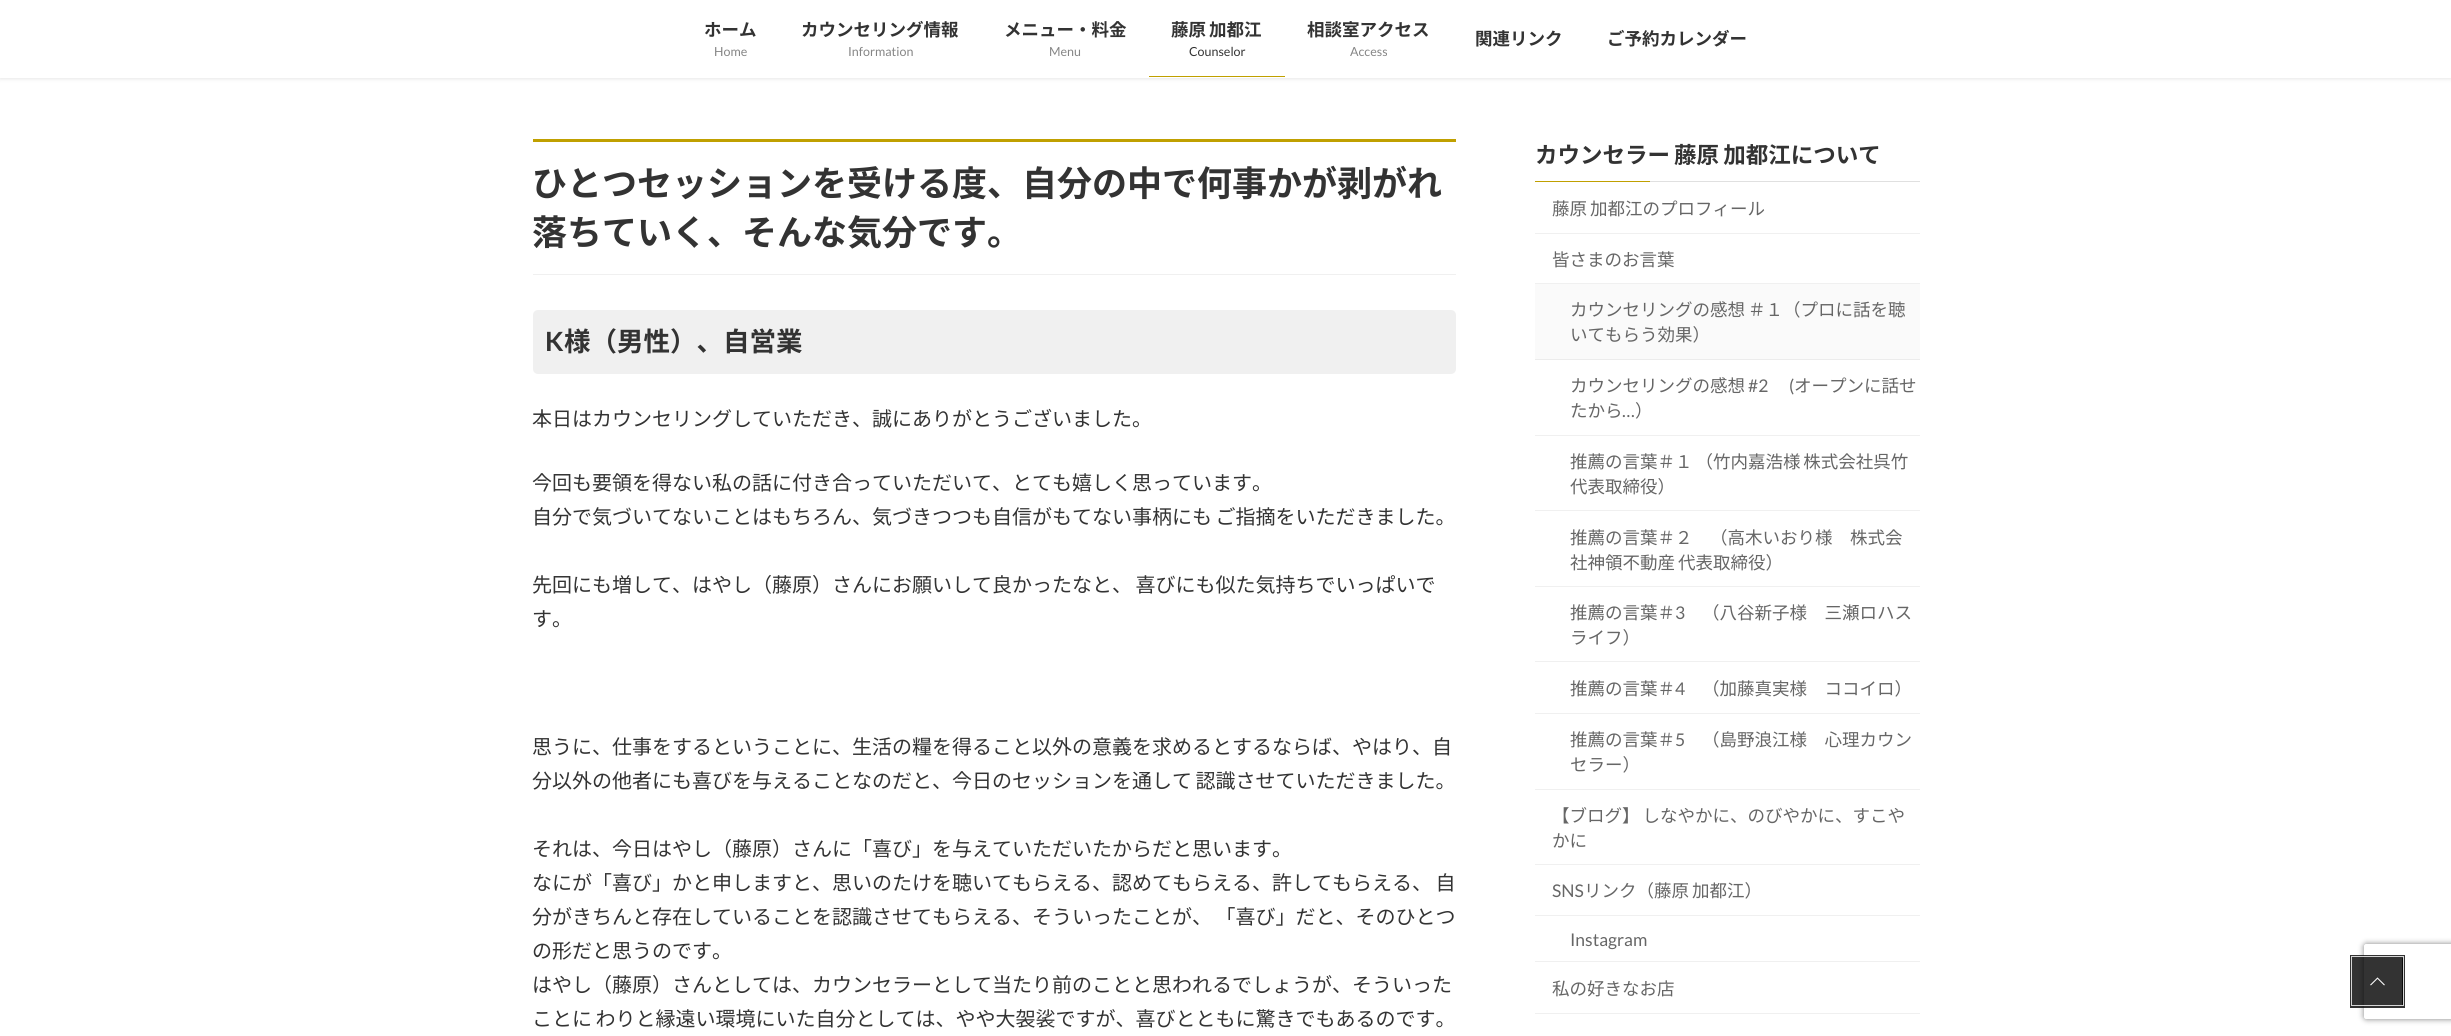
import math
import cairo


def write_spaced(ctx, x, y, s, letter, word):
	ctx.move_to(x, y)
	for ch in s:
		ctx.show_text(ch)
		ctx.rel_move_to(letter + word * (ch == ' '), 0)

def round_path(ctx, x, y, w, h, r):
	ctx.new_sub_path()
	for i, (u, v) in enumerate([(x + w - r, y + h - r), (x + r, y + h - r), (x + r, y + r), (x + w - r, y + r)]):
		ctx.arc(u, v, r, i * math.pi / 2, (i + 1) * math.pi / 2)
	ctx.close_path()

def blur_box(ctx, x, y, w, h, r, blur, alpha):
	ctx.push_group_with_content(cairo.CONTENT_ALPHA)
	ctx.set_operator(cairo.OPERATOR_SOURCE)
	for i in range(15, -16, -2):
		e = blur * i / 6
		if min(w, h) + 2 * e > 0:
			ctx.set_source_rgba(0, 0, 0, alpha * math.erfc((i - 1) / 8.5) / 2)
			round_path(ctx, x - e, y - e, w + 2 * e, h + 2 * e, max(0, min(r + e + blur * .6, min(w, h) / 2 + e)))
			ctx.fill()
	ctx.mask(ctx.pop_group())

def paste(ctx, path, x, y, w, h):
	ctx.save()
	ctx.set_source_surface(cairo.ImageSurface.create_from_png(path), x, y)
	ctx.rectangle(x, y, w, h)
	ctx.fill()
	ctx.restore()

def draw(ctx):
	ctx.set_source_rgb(1, 1, 1)
	ctx.paint()
	ctx.set_source_rgb(0, 0, 0)
	blur_box(ctx, 0, 1, 2451, 78, 0, 2, 0.1)
	ctx.set_source_rgb(1, 1, 1)
	ctx.rectangle(0, 0, 2451, 78)
	ctx.fill()
	ctx.select_font_face('Noto Sans JP', cairo.FONT_SLANT_NORMAL, cairo.FONT_WEIGHT_BOLD)
	ctx.set_font_size(17.5)
	ctx.set_source_rgb(0.2, 0.2, 0.2)
	ctx.move_to(704, 36)
	ctx.show_text('ホーム')
	ctx.select_font_face('Lato')
	ctx.set_font_size(12.5)
	ctx.set_source_rgb(0.522, 0.522, 0.522)
	ctx.move_to(714, 56)
	ctx.show_text('Home')
	ctx.select_font_face('Noto Sans JP', cairo.FONT_SLANT_NORMAL, cairo.FONT_WEIGHT_BOLD)
	ctx.set_font_size(17.5)
	ctx.set_source_rgb(0.2, 0.2, 0.2)
	ctx.move_to(801, 36)
	ctx.show_text('カウンセリング情報')
	ctx.select_font_face('Lato')
	ctx.set_font_size(12.5)
	ctx.set_source_rgb(0.522, 0.522, 0.522)
	ctx.move_to(848, 56)
	ctx.show_text('Information')
	ctx.select_font_face('Noto Sans JP', cairo.FONT_SLANT_NORMAL, cairo.FONT_WEIGHT_BOLD)
	ctx.set_font_size(17.5)
	ctx.set_source_rgb(0.2, 0.2, 0.2)
	ctx.move_to(1004, 36)
	ctx.show_text('メニュー・料金')
	ctx.select_font_face('Lato')
	ctx.set_font_size(12.5)
	ctx.set_source_rgb(0.522, 0.522, 0.522)
	ctx.move_to(1049, 56)
	ctx.show_text('Menu')
	ctx.select_font_face('Noto Sans JP', cairo.FONT_SLANT_NORMAL, cairo.FONT_WEIGHT_BOLD)
	ctx.set_font_size(17.5)
	ctx.set_source_rgb(0.2, 0.2, 0.2)
	write_spaced(ctx, 1171, 36, '藤原 加都江', 0, -1)
	ctx.select_font_face('Lato')
	ctx.set_font_size(12.5)
	ctx.move_to(1189, 56)
	ctx.show_text('Counselor')
	ctx.set_source_rgb(0.753, 0.627, 0)
	ctx.rectangle(1149, 76, 136, 1)
	ctx.fill()
	ctx.select_font_face('Noto Sans JP', cairo.FONT_SLANT_NORMAL, cairo.FONT_WEIGHT_BOLD)
	ctx.set_font_size(17.5)
	ctx.set_source_rgb(0.2, 0.2, 0.2)
	ctx.move_to(1307, 36)
	ctx.show_text('相談室アクセス')
	ctx.select_font_face('Lato')
	ctx.set_font_size(12.5)
	ctx.set_source_rgb(0.522, 0.522, 0.522)
	ctx.move_to(1350, 56)
	ctx.show_text('Access')
	ctx.select_font_face('Noto Sans JP', cairo.FONT_SLANT_NORMAL, cairo.FONT_WEIGHT_BOLD)
	ctx.set_font_size(17.5)
	ctx.set_source_rgb(0.2, 0.2, 0.2)
	ctx.move_to(1475, 45)
	ctx.show_text('関連リンク')
	ctx.move_to(1607, 45)
	ctx.show_text('ご予約カレンダー')
	ctx.set_source_rgb(0.753, 0.627, 0)
	ctx.rectangle(533, 139, 923, 3)
	ctx.fill()
	ctx.set_source_rgb(0.941, 0.941, 0.941)
	ctx.rectangle(533, 274, 923, 1)
	ctx.fill()
	ctx.set_font_size(35)
	ctx.set_source_rgb(0.2, 0.2, 0.2)
	ctx.move_to(532, 196)
	ctx.show_text('ひとつセッションを受ける度、自分の中で何事かが剥がれ')
	ctx.move_to(532, 245)
	ctx.show_text('落ちていく、そんな気分です。')
	ctx.set_source_rgb(0.941, 0.941, 0.941)
	round_path(ctx, 533, 310, 923, 64, 5)
	ctx.fill()
	ctx.select_font_face('Lato', cairo.FONT_SLANT_NORMAL, cairo.FONT_WEIGHT_BOLD)
	ctx.set_font_size(26.5)
	ctx.set_source_rgb(0.2, 0.2, 0.2)
	ctx.move_to(545, 351)
	ctx.show_text('K')
	ctx.select_font_face('Noto Sans JP', cairo.FONT_SLANT_NORMAL, cairo.FONT_WEIGHT_BOLD)
	ctx.move_to(564, 351)
	ctx.show_text('様（男性）、自営業')
	ctx.select_font_face('Noto Sans JP')
	ctx.set_font_size(20)
	ctx.move_to(532, 426)
	ctx.show_text('本日はカウンセリングしていただき、誠にありがとうございました。')
	ctx.move_to(532, 490)
	ctx.show_text('今回も要領を得ない私の話に付き合っていただいて、とても嬉しく思っています。')
	write_spaced(ctx, 532, 524, '自分で気づいてないことはもちろん、気づきつつも自信がもてない事柄にも ご指摘をいただきました。', 0, -1)
	write_spaced(ctx, 532, 592, '先回にも増して、はやし（藤原）さんにお願いして良かったなと、 喜びにも似た気持ちでいっぱいで', 0, -1)
	ctx.move_to(532, 626)
	ctx.show_text('す。')
	ctx.move_to(532, 754)
	ctx.show_text('思うに、仕事をするということに、生活の糧を得ること以外の意義を求めるとするならば、やはり、自')
	write_spaced(ctx, 532, 788, '分以外の他者にも喜びを与えることなのだと、今日のセッションを通して 認識させていただきました。', 0, -1)
	ctx.move_to(532, 856)
	ctx.show_text('それは、今日はやし（藤原）さんに「喜び」を与えていただいたからだと思います。')
	write_spaced(ctx, 532, 890, 'なにが「喜び」かと申しますと、思いのたけを聴いてもらえる、認めてもらえる、許してもらえる、 自', 0, -1)
	write_spaced(ctx, 532, 924, '分がきちんと存在していることを認識させてもらえる、そういったことが、 「喜び」だと、そのひとつ', 0, -1)
	ctx.move_to(532, 958)
	ctx.show_text('の形だと思うのです。')
	ctx.move_to(532, 992)
	ctx.show_text('はやし（藤原）さんとしては、カウンセラーとして当たり前のことと思われるでしょうが、そういった')
	write_spaced(ctx, 532, 1026, 'ことに わりと縁遠い環境にいた自分としては、やや大袈裟ですが、喜びとともに驚きでもあるのです。', 0, -1)
	ctx.set_source_rgb(0.878, 0.878, 0.878)
	ctx.rectangle(1650, 181, 270, 1)
	ctx.fill()
	ctx.select_font_face('Noto Sans JP', cairo.FONT_SLANT_NORMAL, cairo.FONT_WEIGHT_BOLD)
	ctx.set_font_size(22.5)
	ctx.set_source_rgb(0.2, 0.2, 0.2)
	write_spaced(ctx, 1535, 163, 'カウンセラー 藤原 加都江について', 0, -1)
	ctx.set_source_rgb(0.753, 0.627, 0)
	ctx.rectangle(1535, 181, 115, 1)
	ctx.fill()
	ctx.set_source_rgb(0.941, 0.941, 0.941)
	ctx.rectangle(1535, 233, 385, 1)
	ctx.fill()
	ctx.select_font_face('Noto Sans JP')
	ctx.set_font_size(17.5)
	ctx.set_source_rgb(0.4, 0.4, 0.4)
	write_spaced(ctx, 1552, 215, '藤原 加都江のプロフィール', 0, -1)
	ctx.set_source_rgb(0.941, 0.941, 0.941)
	ctx.rectangle(1535, 283, 385, 1)
	ctx.fill()
	ctx.set_source_rgb(0.4, 0.4, 0.4)
	ctx.move_to(1552, 266)
	ctx.show_text('皆さまのお言葉')
	ctx.set_source_rgb(0.98, 0.98, 0.98)
	ctx.rectangle(1535, 284, 385, 75)
	ctx.fill()
	ctx.set_source_rgb(0.922, 0.922, 0.922)
	ctx.rectangle(1535, 359, 385, 1)
	ctx.fill()
	ctx.set_source_rgb(0.4, 0.4, 0.4)
	write_spaced(ctx, 1570, 316, 'カウンセリングの感想 ＃１（プロに話を聴', 0, -1)
	ctx.move_to(1570, 341)
	ctx.show_text('いてもらう効果）')
	ctx.set_source_rgb(0.941, 0.941, 0.941)
	ctx.rectangle(1535, 435, 385, 1)
	ctx.fill()
	ctx.set_source_rgb(0.4, 0.4, 0.4)
	ctx.move_to(1570, 392)
	ctx.show_text('カウンセリングの感想')
	ctx.select_font_face('Lato')
	ctx.move_to(1748, 392)
	ctx.show_text('#2')
	ctx.move_to(1789, 392)
	ctx.show_text('(')
	ctx.select_font_face('Noto Sans JP')
	ctx.move_to(1794, 392)
	ctx.show_text('オープンに話せ')
	ctx.move_to(1570, 417)
	ctx.show_text('たから')
	ctx.select_font_face('Lato')
	ctx.move_to(1622, 417)
	ctx.show_text('…')
	ctx.select_font_face('Noto Sans JP')
	ctx.move_to(1635, 417)
	ctx.show_text('）')
	ctx.set_source_rgb(0.941, 0.941, 0.941)
	ctx.rectangle(1535, 510, 385, 1)
	ctx.fill()
	ctx.set_source_rgb(0.4, 0.4, 0.4)
	write_spaced(ctx, 1570, 468, '推薦の言葉＃１ （竹内嘉浩様 株式会社呉竹', 0, -1)
	ctx.move_to(1570, 493)
	ctx.show_text('代表取締役）')
	ctx.set_source_rgb(0.941, 0.941, 0.941)
	ctx.rectangle(1535, 586, 385, 1)
	ctx.fill()
	ctx.set_source_rgb(0.4, 0.4, 0.4)
	ctx.move_to(1570, 544)
	ctx.show_text('推薦の言葉＃２　（高木いおり様　株式会')
	write_spaced(ctx, 1570, 569, '社神領不動産 代表取締役）', 0, -1)
	ctx.set_source_rgb(0.941, 0.941, 0.941)
	ctx.rectangle(1535, 661, 385, 1)
	ctx.fill()
	ctx.set_source_rgb(0.4, 0.4, 0.4)
	ctx.move_to(1570, 619)
	ctx.show_text('推薦の言葉＃')
	ctx.select_font_face('Lato')
	ctx.move_to(1675, 619)
	ctx.show_text('3')
	ctx.select_font_face('Noto Sans JP')
	ctx.move_to(1702, 619)
	ctx.show_text('（八谷新子様　三瀬ロハス')
	ctx.move_to(1570, 644)
	ctx.show_text('ライフ）')
	ctx.set_source_rgb(0.941, 0.941, 0.941)
	ctx.rectangle(1535, 713, 385, 1)
	ctx.fill()
	ctx.set_source_rgb(0.4, 0.4, 0.4)
	ctx.move_to(1570, 695)
	ctx.show_text('推薦の言葉＃')
	ctx.select_font_face('Lato')
	ctx.move_to(1675, 695)
	ctx.show_text('4')
	ctx.select_font_face('Noto Sans JP')
	ctx.move_to(1702, 695)
	ctx.show_text('（加藤真実様　ココイロ）')
	ctx.set_source_rgb(0.941, 0.941, 0.941)
	ctx.rectangle(1535, 789, 385, 1)
	ctx.fill()
	ctx.set_source_rgb(0.4, 0.4, 0.4)
	ctx.move_to(1570, 746)
	ctx.show_text('推薦の言葉＃')
	ctx.select_font_face('Lato')
	ctx.move_to(1675, 746)
	ctx.show_text('5')
	ctx.select_font_face('Noto Sans JP')
	ctx.move_to(1702, 746)
	ctx.show_text('（島野浪江様　心理カウン')
	ctx.move_to(1570, 771)
	ctx.show_text('セラー）')
	ctx.set_source_rgb(0.941, 0.941, 0.941)
	ctx.rectangle(1535, 864, 385, 1)
	ctx.fill()
	ctx.set_source_rgb(0.4, 0.4, 0.4)
	write_spaced(ctx, 1552, 822, '【ブログ】 しなやかに、のびやかに、すこや', 0, -1)
	ctx.move_to(1552, 847)
	ctx.show_text('かに')
	ctx.set_source_rgb(0.941, 0.941, 0.941)
	ctx.rectangle(1535, 915, 385, 1)
	ctx.fill()
	ctx.select_font_face('Lato')
	ctx.set_source_rgb(0.4, 0.4, 0.4)
	ctx.move_to(1552, 897)
	ctx.show_text('SNS')
	ctx.select_font_face('Noto Sans JP')
	write_spaced(ctx, 1584, 897, 'リンク（藤原 加都江）', 0, -1)
	ctx.set_source_rgb(0.941, 0.941, 0.941)
	ctx.rectangle(1535, 961, 385, 1)
	ctx.fill()
	ctx.select_font_face('Lato')
	ctx.set_source_rgb(0.4, 0.4, 0.4)
	ctx.move_to(1570, 946)
	ctx.show_text('Instagram')
	ctx.set_source_rgb(0.941, 0.941, 0.941)
	ctx.rectangle(1535, 1013, 385, 1)
	ctx.fill()
	ctx.select_font_face('Noto Sans JP')
	ctx.set_source_rgb(0.4, 0.4, 0.4)
	ctx.move_to(1552, 995)
	ctx.show_text('私の好きなお店')
	ctx.save()
	ctx.set_fill_rule(cairo.FILL_RULE_EVEN_ODD)
	ctx.new_path()
	ctx.move_to(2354, 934)
	ctx.line_to(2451, 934)
	ctx.line_to(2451, 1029)
	ctx.line_to(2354, 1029)
	ctx.close_path()
	ctx.move_to(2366.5, 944)
	ctx.line_to(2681.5, 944)
	ctx.curve_to(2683, 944, 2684, 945, 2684, 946.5)
	ctx.line_to(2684, 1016.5)
	ctx.curve_to(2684, 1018, 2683, 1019, 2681.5, 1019)
	ctx.line_to(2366.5, 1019)
	ctx.curve_to(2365, 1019, 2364, 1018, 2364, 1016.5)
	ctx.line_to(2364, 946.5)
	ctx.curve_to(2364, 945, 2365, 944, 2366.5, 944)
	ctx.close_path()
	ctx.clip()
	ctx.set_source_rgb(0.502, 0.502, 0.502)
	blur_box(ctx, 2364, 944, 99, 75, 2.5, 3, 1)
	ctx.restore()
	ctx.rectangle(2351.5, 956.5, 52, 50)
	ctx.set_source_rgba(0, 0, 0, 0.8)
	ctx.set_line_width(3)
	ctx.stroke()
	ctx.rectangle(2351.5, 956.5, 52, 49)
	ctx.set_source_rgba(1, 1, 1, 0.8)
	ctx.set_line_width(1)
	ctx.stroke()
	ctx.set_source_rgba(0, 0, 0, 0.8)
	ctx.rectangle(2353, 958, 50, 47)
	ctx.fill()
	paste(ctx, 'media/1.png', 2370, 977, 15, 9)


surface = cairo.ImageSurface(cairo.FORMAT_RGB24, 2451, 1036)
ctx = cairo.Context(surface)
options = cairo.FontOptions()
options.set_hint_metrics(cairo.HINT_METRICS_OFF)
options.set_hint_style(cairo.HINT_STYLE_NONE)
ctx.set_font_options(options)
ctx.set_miter_limit(4)
draw(ctx)
surface.write_to_png('image.png')
